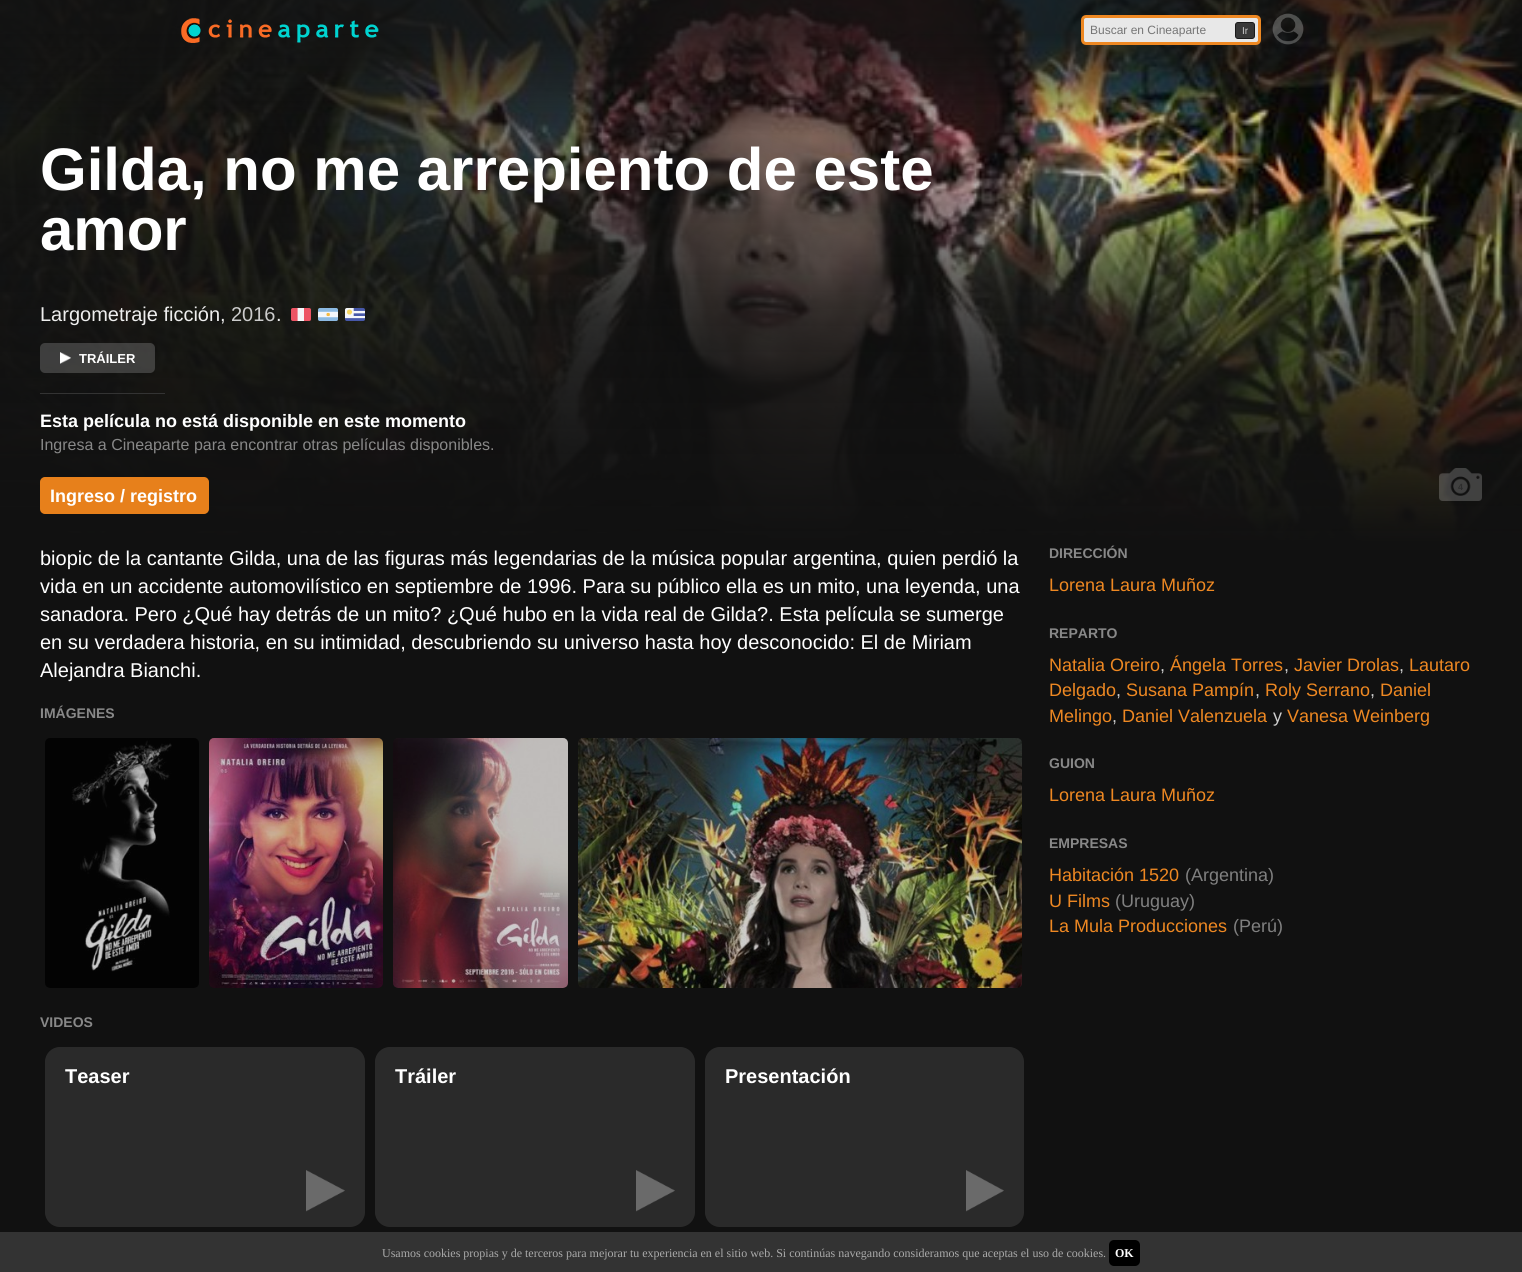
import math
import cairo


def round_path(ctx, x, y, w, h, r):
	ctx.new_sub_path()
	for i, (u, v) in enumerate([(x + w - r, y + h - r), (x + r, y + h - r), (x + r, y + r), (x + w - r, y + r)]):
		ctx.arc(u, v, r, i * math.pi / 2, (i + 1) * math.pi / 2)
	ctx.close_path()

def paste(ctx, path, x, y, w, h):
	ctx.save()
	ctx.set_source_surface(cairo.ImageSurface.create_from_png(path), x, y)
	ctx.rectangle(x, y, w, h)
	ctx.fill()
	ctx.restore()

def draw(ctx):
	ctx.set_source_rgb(0.067, 0.067, 0.067)
	ctx.paint()
	paste(ctx, 'media/3.png', 0, 0, 1522, 544)
	paste(ctx, 'media/1.png', 181, 18, 198, 25)
	ctx.set_source_rgb(0.91, 0.91, 0.91)
	round_path(ctx, 1082.5, 16.5, 177, 27, 3.5)
	ctx.fill_preserve()
	ctx.set_source_rgb(0.933, 0.533, 0.133)
	ctx.set_line_width(3)
	ctx.stroke()
	ctx.select_font_face('Liberation Sans')
	ctx.set_font_size(12)
	ctx.set_source_rgb(0.459, 0.459, 0.459)
	ctx.move_to(1090, 34)
	ctx.show_text('Buscar en Cineaparte')
	ctx.set_source_rgb(0.22, 0.22, 0.22)
	round_path(ctx, 1235.5, 22.5, 19, 16, 2.5)
	ctx.fill_preserve()
	ctx.set_source_rgb(0.102, 0.102, 0.102)
	ctx.set_line_width(1)
	ctx.stroke()
	ctx.set_font_size(10)
	ctx.set_source_rgb(0.8, 0.8, 0.8)
	ctx.move_to(1242, 34)
	ctx.show_text('Ir')
	paste(ctx, 'media/2.png', 1272, 13, 32, 32)
	ctx.select_font_face('Liberation Sans', cairo.FONT_SLANT_NORMAL, cairo.FONT_WEIGHT_BOLD)
	ctx.set_font_size(60)
	ctx.set_source_rgb(1, 1, 1)
	ctx.move_to(40, 190)
	ctx.show_text('Gilda, no me arrepiento de este')
	ctx.move_to(40, 250)
	ctx.show_text('amor')
	ctx.select_font_face('Liberation Sans')
	ctx.set_font_size(20)
	ctx.set_source_rgb(0.933, 0.933, 0.933)
	ctx.move_to(40, 321)
	ctx.show_text('Largometraje ficción,')
	ctx.set_source_rgb(0.8, 0.8, 0.8)
	ctx.move_to(231, 321)
	ctx.show_text('2016')
	ctx.set_source_rgb(0.933, 0.933, 0.933)
	ctx.move_to(276, 321)
	ctx.show_text('.')
	paste(ctx, 'media/4.png', 291, 308, 20, 13)
	paste(ctx, 'media/5.png', 318, 308, 20, 13)
	paste(ctx, 'media/6.png', 345, 308, 20, 13)
	ctx.set_source_rgb(0.2, 0.2, 0.2)
	ctx.rectangle(40, 393, 125, 1)
	ctx.fill()
	ctx.set_source_rgba(0.502, 0.502, 0.502, 0.4)
	round_path(ctx, 40, 343, 115, 30, 5)
	ctx.fill()
	paste(ctx, 'media/7.png', 60, 352, 11, 12)
	ctx.select_font_face('Liberation Sans', cairo.FONT_SLANT_NORMAL, cairo.FONT_WEIGHT_BOLD)
	ctx.set_font_size(13)
	ctx.set_source_rgb(1, 1, 1)
	ctx.move_to(79, 363)
	ctx.show_text('TRÁILER')
	ctx.set_font_size(18)
	ctx.move_to(40, 427)
	ctx.show_text('Esta película no está disponible en este momento')
	ctx.select_font_face('Liberation Sans')
	ctx.set_font_size(16)
	ctx.set_source_rgb(0.533, 0.533, 0.533)
	ctx.move_to(40, 450)
	ctx.show_text('Ingresa a Cineaparte para encontrar otras películas disponibles.')
	paste(ctx, 'media/8.png', 1439, 468, 43, 33)
	ctx.select_font_face('Liberation Sans', cairo.FONT_SLANT_NORMAL, cairo.FONT_WEIGHT_BOLD)
	ctx.set_font_size(9)
	ctx.set_source_rgb(0.176, 0.176, 0.176)
	ctx.move_to(1458, 490)
	ctx.show_text('4')
	ctx.set_source_rgb(0.906, 0.502, 0.106)
	round_path(ctx, 41, 478, 167, 35, 4)
	ctx.fill_preserve()
	ctx.set_line_width(2)
	ctx.stroke()
	ctx.set_font_size(18)
	ctx.set_source_rgb(1, 1, 1)
	ctx.move_to(50, 502)
	ctx.show_text('Ingreso / registro')
	ctx.select_font_face('Liberation Sans')
	ctx.set_font_size(20)
	for x, y, s in [
		(40, 565, 'biopic de la cantante Gilda, una de las figuras más legendarias de la música popular argentina, quien perdió la'),
		(40, 593, 'vida en un accidente automovilístico en septiembre de 1996. Para su público ella es un mito, una leyenda, una'),
		(40, 621, 'sanadora. Pero ¿Qué hay detrás de un mito? ¿Qué hubo en la vida real de Gilda?. Esta película se sumerge'),
		(40, 649, 'en su verdadera historia, en su intimidad, descubriendo su universo hasta hoy desconocido: El de Miriam'),
		(40, 677, 'Alejandra Bianchi.'),
	]:
		ctx.move_to(x, y)
		ctx.show_text(s)
	ctx.select_font_face('Liberation Sans', cairo.FONT_SLANT_NORMAL, cairo.FONT_WEIGHT_BOLD)
	ctx.set_font_size(14)
	ctx.set_source_rgb(0.533, 0.533, 0.533)
	ctx.move_to(40, 718)
	ctx.show_text('IMÁGENES')
	paste(ctx, 'media/9.png', 45, 738, 154, 250)
	paste(ctx, 'media/10.png', 209, 738, 174, 250)
	paste(ctx, 'media/11.png', 393, 738, 175, 250)
	paste(ctx, 'media/12.png', 578, 738, 444, 250)
	ctx.move_to(40, 1027)
	ctx.show_text('VIDEOS')
	ctx.set_source_rgb(0.133, 0.133, 0.133)
	round_path(ctx, 45, 1047, 320, 180, 15)
	ctx.fill()
	ctx.set_source_rgba(0.267, 0.267, 0.267, 0.25)
	round_path(ctx, 45, 1047, 320, 180, 15)
	ctx.fill()
	ctx.set_font_size(20)
	ctx.set_source_rgb(1, 1, 1)
	ctx.move_to(65, 1083)
	ctx.show_text('Teaser')
	paste(ctx, 'media/13.png', 306, 1170, 39, 42)
	ctx.set_source_rgb(0.133, 0.133, 0.133)
	round_path(ctx, 375, 1047, 320, 180, 15)
	ctx.fill()
	ctx.set_source_rgba(0.267, 0.267, 0.267, 0.25)
	round_path(ctx, 375, 1047, 320, 180, 15)
	ctx.fill()
	ctx.set_source_rgb(1, 1, 1)
	ctx.move_to(395, 1083)
	ctx.show_text('Tráiler')
	paste(ctx, 'media/14.png', 636, 1170, 39, 42)
	ctx.set_source_rgb(0.133, 0.133, 0.133)
	round_path(ctx, 705, 1047, 319, 180, 15)
	ctx.fill()
	ctx.set_source_rgba(0.267, 0.267, 0.267, 0.25)
	round_path(ctx, 705, 1047, 319, 180, 15)
	ctx.fill()
	ctx.set_source_rgb(1, 1, 1)
	ctx.move_to(725, 1083)
	ctx.show_text('Presentación')
	paste(ctx, 'media/15.png', 966, 1170, 38, 42)
	ctx.set_font_size(14)
	ctx.set_source_rgb(0.533, 0.533, 0.533)
	ctx.move_to(1049, 558)
	ctx.show_text('DIRECCIÓN')
	ctx.select_font_face('Liberation Sans')
	ctx.set_font_size(18)
	ctx.set_source_rgb(0.933, 0.533, 0.133)
	ctx.move_to(1049, 591)
	ctx.show_text('Lorena Laura Muñoz')
	ctx.select_font_face('Liberation Sans', cairo.FONT_SLANT_NORMAL, cairo.FONT_WEIGHT_BOLD)
	ctx.set_font_size(14)
	ctx.set_source_rgb(0.533, 0.533, 0.533)
	ctx.move_to(1049, 638)
	ctx.show_text('REPARTO')
	ctx.select_font_face('Liberation Sans')
	ctx.set_font_size(18)
	ctx.set_source_rgb(0.933, 0.533, 0.133)
	ctx.move_to(1049, 671)
	ctx.show_text('Natalia Oreiro')
	ctx.set_source_rgb(0.8, 0.8, 0.8)
	ctx.move_to(1160, 671)
	ctx.show_text(',')
	ctx.set_source_rgb(0.933, 0.533, 0.133)
	ctx.move_to(1170, 671)
	ctx.show_text('Ángela Torres')
	ctx.set_source_rgb(0.8, 0.8, 0.8)
	ctx.move_to(1284, 671)
	ctx.show_text(',')
	ctx.set_source_rgb(0.933, 0.533, 0.133)
	ctx.move_to(1294, 671)
	ctx.show_text('Javier Drolas')
	ctx.set_source_rgb(0.8, 0.8, 0.8)
	ctx.move_to(1399, 671)
	ctx.show_text(',')
	ctx.set_source_rgb(0.933, 0.533, 0.133)
	ctx.move_to(1409, 671)
	ctx.show_text('Lautaro')
	ctx.move_to(1049, 696)
	ctx.show_text('Delgado')
	ctx.set_source_rgb(0.8, 0.8, 0.8)
	ctx.move_to(1116, 696)
	ctx.show_text(',')
	ctx.set_source_rgb(0.933, 0.533, 0.133)
	ctx.move_to(1126, 696)
	ctx.show_text('Susana Pampín')
	ctx.set_source_rgb(0.8, 0.8, 0.8)
	ctx.move_to(1255, 696)
	ctx.show_text(',')
	ctx.set_source_rgb(0.933, 0.533, 0.133)
	ctx.move_to(1265, 696)
	ctx.show_text('Roly Serrano')
	ctx.set_source_rgb(0.8, 0.8, 0.8)
	ctx.move_to(1370, 696)
	ctx.show_text(',')
	ctx.set_source_rgb(0.933, 0.533, 0.133)
	ctx.move_to(1380, 696)
	ctx.show_text('Daniel')
	ctx.move_to(1049, 722)
	ctx.show_text('Melingo')
	ctx.set_source_rgb(0.8, 0.8, 0.8)
	ctx.move_to(1112, 722)
	ctx.show_text(',')
	ctx.set_source_rgb(0.933, 0.533, 0.133)
	ctx.move_to(1122, 722)
	ctx.show_text('Daniel Valenzuela')
	ctx.set_source_rgb(0.8, 0.8, 0.8)
	ctx.move_to(1273, 722)
	ctx.show_text('y')
	ctx.set_source_rgb(0.933, 0.533, 0.133)
	ctx.move_to(1287, 722)
	ctx.show_text('Vanesa Weinberg')
	ctx.select_font_face('Liberation Sans', cairo.FONT_SLANT_NORMAL, cairo.FONT_WEIGHT_BOLD)
	ctx.set_font_size(14)
	ctx.set_source_rgb(0.533, 0.533, 0.533)
	ctx.move_to(1049, 768)
	ctx.show_text('GUION')
	ctx.select_font_face('Liberation Sans')
	ctx.set_font_size(18)
	ctx.set_source_rgb(0.933, 0.533, 0.133)
	ctx.move_to(1049, 801)
	ctx.show_text('Lorena Laura Muñoz')
	ctx.select_font_face('Liberation Sans', cairo.FONT_SLANT_NORMAL, cairo.FONT_WEIGHT_BOLD)
	ctx.set_font_size(14)
	ctx.set_source_rgb(0.533, 0.533, 0.533)
	ctx.move_to(1049, 848)
	ctx.show_text('EMPRESAS')
	ctx.select_font_face('Liberation Sans')
	ctx.set_font_size(18)
	ctx.set_source_rgb(0.933, 0.533, 0.133)
	ctx.move_to(1049, 881)
	ctx.show_text('Habitación 1520')
	ctx.set_source_rgb(0.502, 0.502, 0.502)
	ctx.move_to(1185, 881)
	ctx.show_text('(Argentina)')
	ctx.set_source_rgb(0.933, 0.533, 0.133)
	ctx.move_to(1049, 907)
	ctx.show_text('U Films')
	ctx.set_source_rgb(0.502, 0.502, 0.502)
	ctx.move_to(1115, 907)
	ctx.show_text('(Uruguay)')
	ctx.set_source_rgb(0.933, 0.533, 0.133)
	ctx.move_to(1049, 932)
	ctx.show_text('La Mula Producciones')
	ctx.set_source_rgb(0.502, 0.502, 0.502)
	ctx.move_to(1233, 932)
	ctx.show_text('(Perú)')
	ctx.set_source_rgb(0.2, 0.2, 0.2)
	ctx.rectangle(0, 1232, 1522, 40)
	ctx.fill()
	ctx.select_font_face('Liberation Serif')
	ctx.set_font_size(12)
	ctx.set_source_rgb(0.667, 0.667, 0.667)
	ctx.move_to(382, 1257)
	ctx.show_text('Usamos cookies propias y de terceros para mejorar tu experiencia en el sitio web. Si continúas navegando consideramos que aceptas el uso de cookies.')
	ctx.set_source_rgb(0, 0, 0)
	round_path(ctx, 1109, 1240, 31, 26, 5)
	ctx.fill()
	ctx.select_font_face('Liberation Serif', cairo.FONT_SLANT_NORMAL, cairo.FONT_WEIGHT_BOLD)
	ctx.set_source_rgb(1, 1, 1)
	ctx.move_to(1115, 1257)
	ctx.show_text('OK')


surface = cairo.ImageSurface(cairo.FORMAT_RGB24, 1522, 1272)
ctx = cairo.Context(surface)
options = cairo.FontOptions()
options.set_hint_metrics(cairo.HINT_METRICS_OFF)
options.set_hint_style(cairo.HINT_STYLE_NONE)
ctx.set_font_options(options)
ctx.set_miter_limit(4)
draw(ctx)
surface.write_to_png('image.png')
